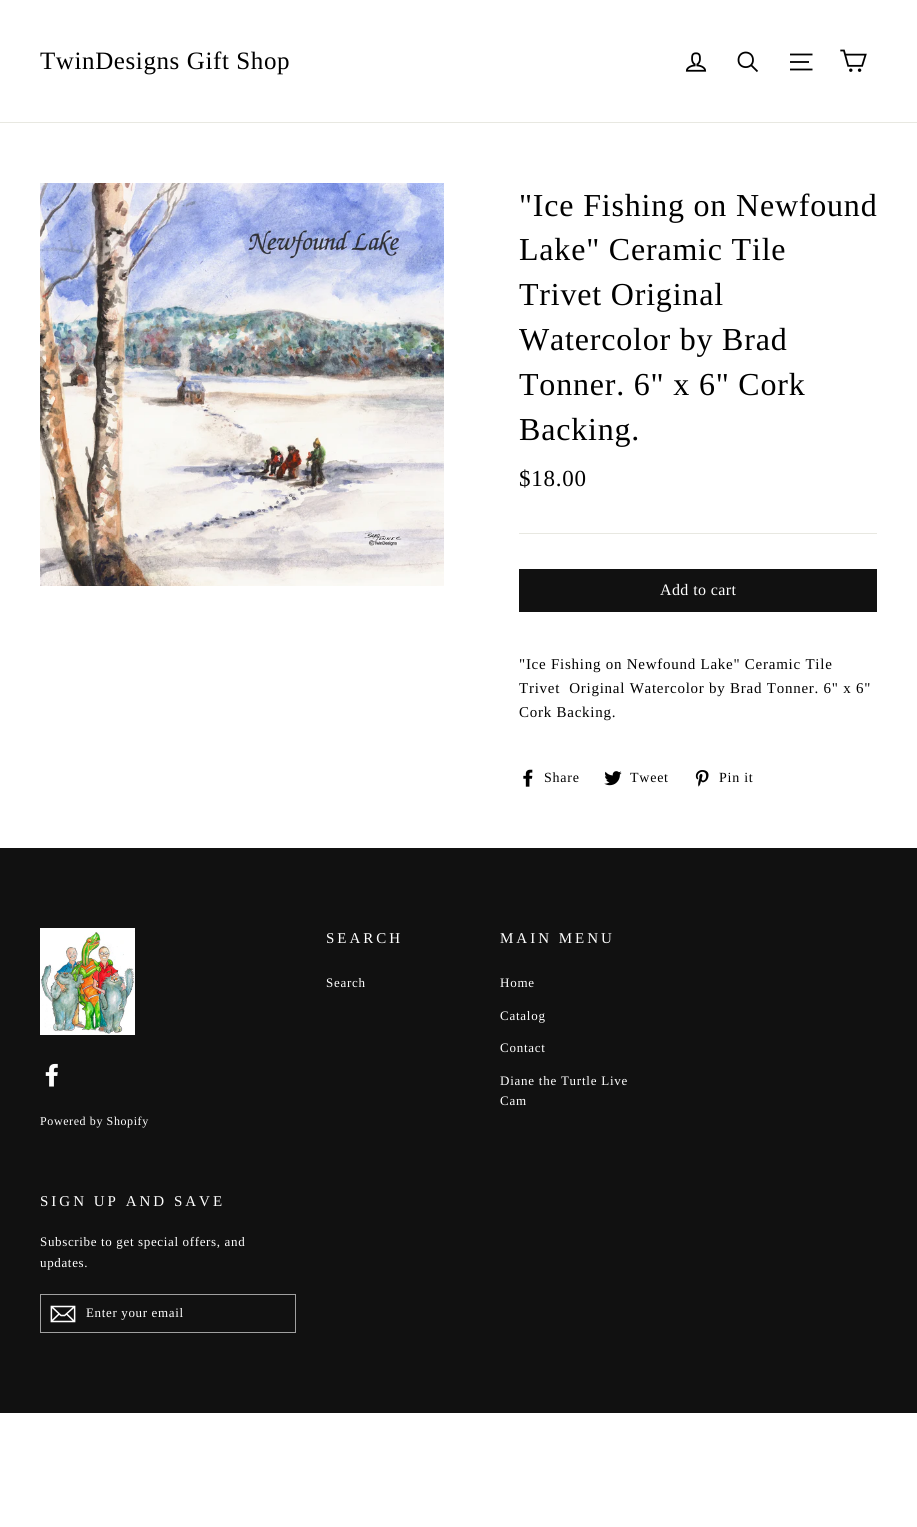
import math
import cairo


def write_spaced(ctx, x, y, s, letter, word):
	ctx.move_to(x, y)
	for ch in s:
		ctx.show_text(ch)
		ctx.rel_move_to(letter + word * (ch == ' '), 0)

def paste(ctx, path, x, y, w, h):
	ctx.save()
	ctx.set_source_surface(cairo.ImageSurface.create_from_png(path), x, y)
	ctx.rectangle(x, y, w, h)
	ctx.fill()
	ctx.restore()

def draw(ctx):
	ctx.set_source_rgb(1, 1, 1)
	ctx.paint()
	ctx.set_source_rgb(0.91, 0.91, 0.882)
	ctx.rectangle(0, 122, 917, 1)
	ctx.fill()
	ctx.select_font_face('Liberation Serif')
	ctx.set_font_size(25)
	ctx.set_source_rgb(0, 0, 0)
	write_spaced(ctx, 40, 69, 'TwinDesigns Gift Shop', 0.6, 0)
	paste(ctx, 'media/1.png', 685, 52, 22, 20)
	ctx.new_path()
	ctx.move_to(753, 60)
	ctx.curve_to(753, 69.5, 738.5, 69.5, 738.5, 60)
	ctx.curve_to(738.5, 50, 753, 50, 753, 60)
	ctx.close_path()
	ctx.move_to(757.5, 71.5)
	ctx.line_to(751, 65)
	ctx.set_line_width(1.8)
	ctx.stroke()
	ctx.new_path()
	ctx.move_to(790, 54.5)
	ctx.line_to(812.5, 54.5)
	ctx.move_to(790, 62)
	ctx.line_to(809, 62)
	ctx.move_to(790, 69.5)
	ctx.line_to(812.5, 69.5)
	ctx.stroke()
	paste(ctx, 'media/2.png', 840, 49, 27, 23)
	paste(ctx, 'media/3.png', 40, 183, 404, 403)
	ctx.set_font_size(32)
	for x, y, s in [
		(519, 216, '"Ice Fishing on Newfound'),
		(519, 260, 'Lake" Ceramic Tile'),
		(519, 305, 'Trivet Original'),
		(519, 350, 'Watercolor by Brad'),
		(519, 395, 'Tonner. 6" x 6" Cork'),
		(519, 440, 'Backing.'),
	]:
		write_spaced(ctx, x, y, s, 0.8, 0)
	ctx.set_font_size(23)
	write_spaced(ctx, 519, 486, '$18.00', 0.75, 0)
	ctx.set_source_rgb(0.91, 0.91, 0.882)
	ctx.rectangle(519, 533, 358, 1)
	ctx.fill()
	ctx.set_source_rgb(0.067, 0.067, 0.067)
	ctx.rectangle(519, 569, 358, 43)
	ctx.fill()
	ctx.set_font_size(16)
	ctx.set_source_rgb(1, 1, 1)
	write_spaced(ctx, 660, 595, 'Add to cart', 0.4, 0)
	ctx.set_font_size(15)
	ctx.set_source_rgb(0, 0, 0)
	for x, y, s in [
		(519, 669, '"Ice Fishing on Newfound Lake" Ceramic Tile'),
		(519, 693, 'Trivet  Original Watercolor by Brad Tonner. 6" x 6"'),
		(519, 717, 'Cork Backing.'),
	]:
		write_spaced(ctx, x, y, s, 0.75, 0)
	paste(ctx, 'media/4.png', 523, 769, 10, 18)
	ctx.set_font_size(14)
	write_spaced(ctx, 544, 782, 'Share', 0.75, 0)
	paste(ctx, 'media/5.png', 604, 771, 18, 15)
	write_spaced(ctx, 630, 782, 'Tweet', 0.75, 0)
	paste(ctx, 'media/6.png', 695, 770, 14, 17)
	write_spaced(ctx, 719, 782, 'Pin it', 0.75, 0)
	ctx.set_source_rgb(0.067, 0.067, 0.067)
	ctx.rectangle(0, 848, 917, 565)
	ctx.fill()
	ctx.set_font_size(15)
	ctx.set_source_rgb(1, 1, 1)
	write_spaced(ctx, 326, 943, 'SEARCH', 3, 0)
	ctx.set_font_size(13)
	write_spaced(ctx, 326, 987, 'Search', 0.75, 0)
	ctx.set_font_size(15)
	write_spaced(ctx, 500, 943, 'MAIN MENU', 3, 0)
	ctx.set_font_size(13)
	for x, y, s in [
		(500, 987, 'Home'),
		(500, 1020, 'Catalog'),
		(500, 1052, 'Contact'),
		(500, 1085, 'Diane the Turtle Live'),
		(500, 1105, 'Cam'),
	]:
		write_spaced(ctx, x, y, s, 0.75, 0)
	paste(ctx, 'media/7.png', 40, 928, 95, 107)
	paste(ctx, 'media/8.png', 45, 1063, 13, 24)
	ctx.set_font_size(12)
	write_spaced(ctx, 40, 1125, 'Powered by Shopify', 0.6, 0)
	ctx.set_font_size(15)
	write_spaced(ctx, 40, 1206, 'SIGN UP AND SAVE', 3, 0)
	ctx.set_font_size(13)
	write_spaced(ctx, 40, 1246, 'Subscribe to get special offers, and', 0.65, 0)
	write_spaced(ctx, 40, 1267, 'updates.', 0.65, 0)
	ctx.rectangle(40.5, 1294.5, 255, 38)
	ctx.set_source_rgb(0.627, 0.627, 0.627)
	ctx.set_line_width(1)
	ctx.stroke()
	paste(ctx, 'media/9.png', 50, 1305, 26, 18)
	ctx.set_source_rgb(1, 1, 1)
	write_spaced(ctx, 86, 1317, 'Enter your email', 0.65, 0)


surface = cairo.ImageSurface(cairo.FORMAT_RGB24, 917, 1527)
ctx = cairo.Context(surface)
options = cairo.FontOptions()
options.set_hint_metrics(cairo.HINT_METRICS_OFF)
options.set_hint_style(cairo.HINT_STYLE_NONE)
ctx.set_font_options(options)
ctx.set_miter_limit(4)
draw(ctx)
surface.write_to_png('image.png')
